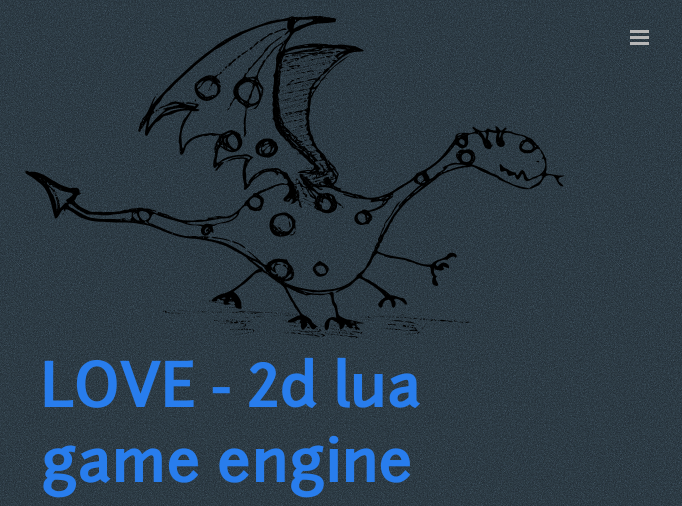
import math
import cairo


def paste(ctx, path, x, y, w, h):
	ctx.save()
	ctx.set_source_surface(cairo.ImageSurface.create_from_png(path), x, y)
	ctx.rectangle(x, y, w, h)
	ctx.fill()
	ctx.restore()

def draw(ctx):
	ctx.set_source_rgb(1, 1, 1)
	ctx.paint()
	paste(ctx, 'media/1.png', 0, 0, 682, 506)
	ctx.set_source_rgb(0.718, 0.718, 0.718)
	ctx.rectangle(630, 30, 19, 3)
	ctx.rectangle(630, 36, 19, 3)
	ctx.rectangle(630, 42, 19, 3)
	ctx.fill()
	paste(ctx, 'media/2.png', 25, 12, 542, 326)
	ctx.select_font_face('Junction', cairo.FONT_SLANT_NORMAL, cairo.FONT_WEIGHT_BOLD)
	ctx.set_font_size(60)
	ctx.set_source_rgb(0.157, 0.49, 0.929)
	ctx.move_to(41, 407)
	ctx.show_text('LOVE - 2d lua')
	ctx.move_to(41, 482)
	ctx.show_text('game engine')


surface = cairo.ImageSurface(cairo.FORMAT_RGB24, 682, 506)
ctx = cairo.Context(surface)
options = cairo.FontOptions()
options.set_hint_metrics(cairo.HINT_METRICS_OFF)
options.set_hint_style(cairo.HINT_STYLE_NONE)
ctx.set_font_options(options)
ctx.set_miter_limit(4)
draw(ctx)
surface.write_to_png('image.png')
